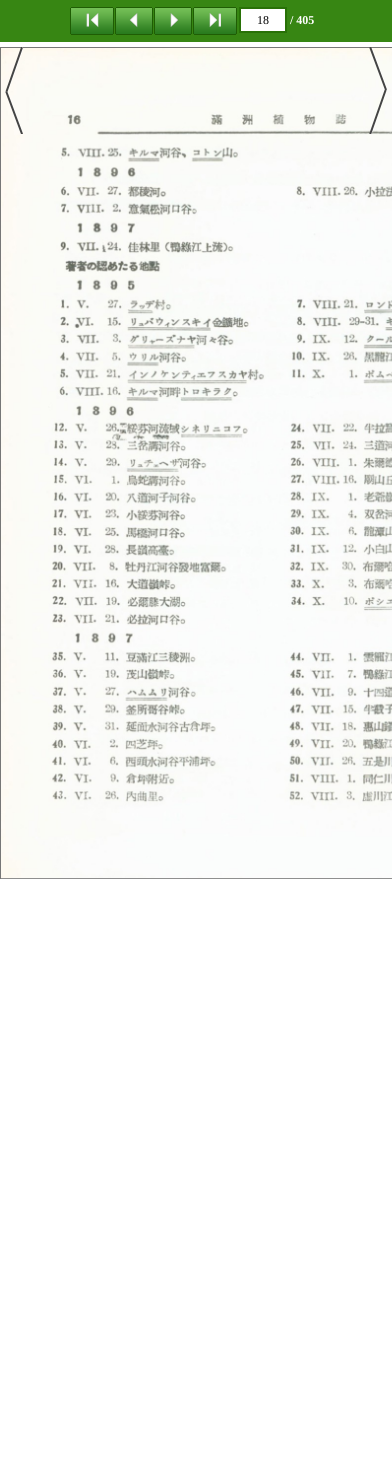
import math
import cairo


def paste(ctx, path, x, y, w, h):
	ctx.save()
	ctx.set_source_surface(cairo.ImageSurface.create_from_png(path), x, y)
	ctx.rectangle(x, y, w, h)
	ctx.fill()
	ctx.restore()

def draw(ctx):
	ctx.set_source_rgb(1, 1, 1)
	ctx.paint()
	ctx.set_source_rgb(0.216, 0.525, 0.075)
	ctx.rectangle(0, 0, 392, 42)
	ctx.fill()
	paste(ctx, 'media/1.png', 70, 7, 44, 28)
	paste(ctx, 'media/2.png', 115, 7, 38, 28)
	paste(ctx, 'media/3.png', 154, 7, 38, 28)
	paste(ctx, 'media/4.png', 193, 7, 44, 28)
	ctx.set_source_rgb(1, 1, 1)
	ctx.rectangle(240, 8, 46, 24)
	ctx.fill_preserve()
	ctx.set_source_rgb(0.157, 0.443, 0.031)
	ctx.stroke()
	ctx.select_font_face('Liberation Serif')
	ctx.set_font_size(12)
	ctx.set_source_rgb(0, 0, 0)
	ctx.move_to(257, 24)
	ctx.show_text('18')
	ctx.select_font_face('Liberation Serif', cairo.FONT_SLANT_NORMAL, cairo.FONT_WEIGHT_BOLD)
	ctx.set_source_rgb(1, 1, 1)
	ctx.move_to(290, 24)
	ctx.show_text('/ 405')
	ctx.set_source_rgb(0.467, 0.467, 0.467)
	ctx.rectangle(0, 47, 392, 1)
	ctx.fill()
	ctx.set_source_rgb(0.561, 0.561, 0.561)
	ctx.rectangle(0, 878, 392, 1)
	ctx.fill()
	ctx.set_source_rgb(0.467, 0.467, 0.467)
	ctx.rectangle(0, 47, 1, 832)
	ctx.fill()
	paste(ctx, 'media/5.png', 1, 48, 391, 830)
	paste(ctx, 'media/6.png', 5, 47, 18, 87)
	paste(ctx, 'media/7.png', 369, 47, 18, 87)


surface = cairo.ImageSurface(cairo.FORMAT_RGB24, 392, 1480)
ctx = cairo.Context(surface)
options = cairo.FontOptions()
options.set_hint_metrics(cairo.HINT_METRICS_OFF)
options.set_hint_style(cairo.HINT_STYLE_NONE)
ctx.set_font_options(options)
ctx.set_miter_limit(4)
draw(ctx)
surface.write_to_png('image.png')
